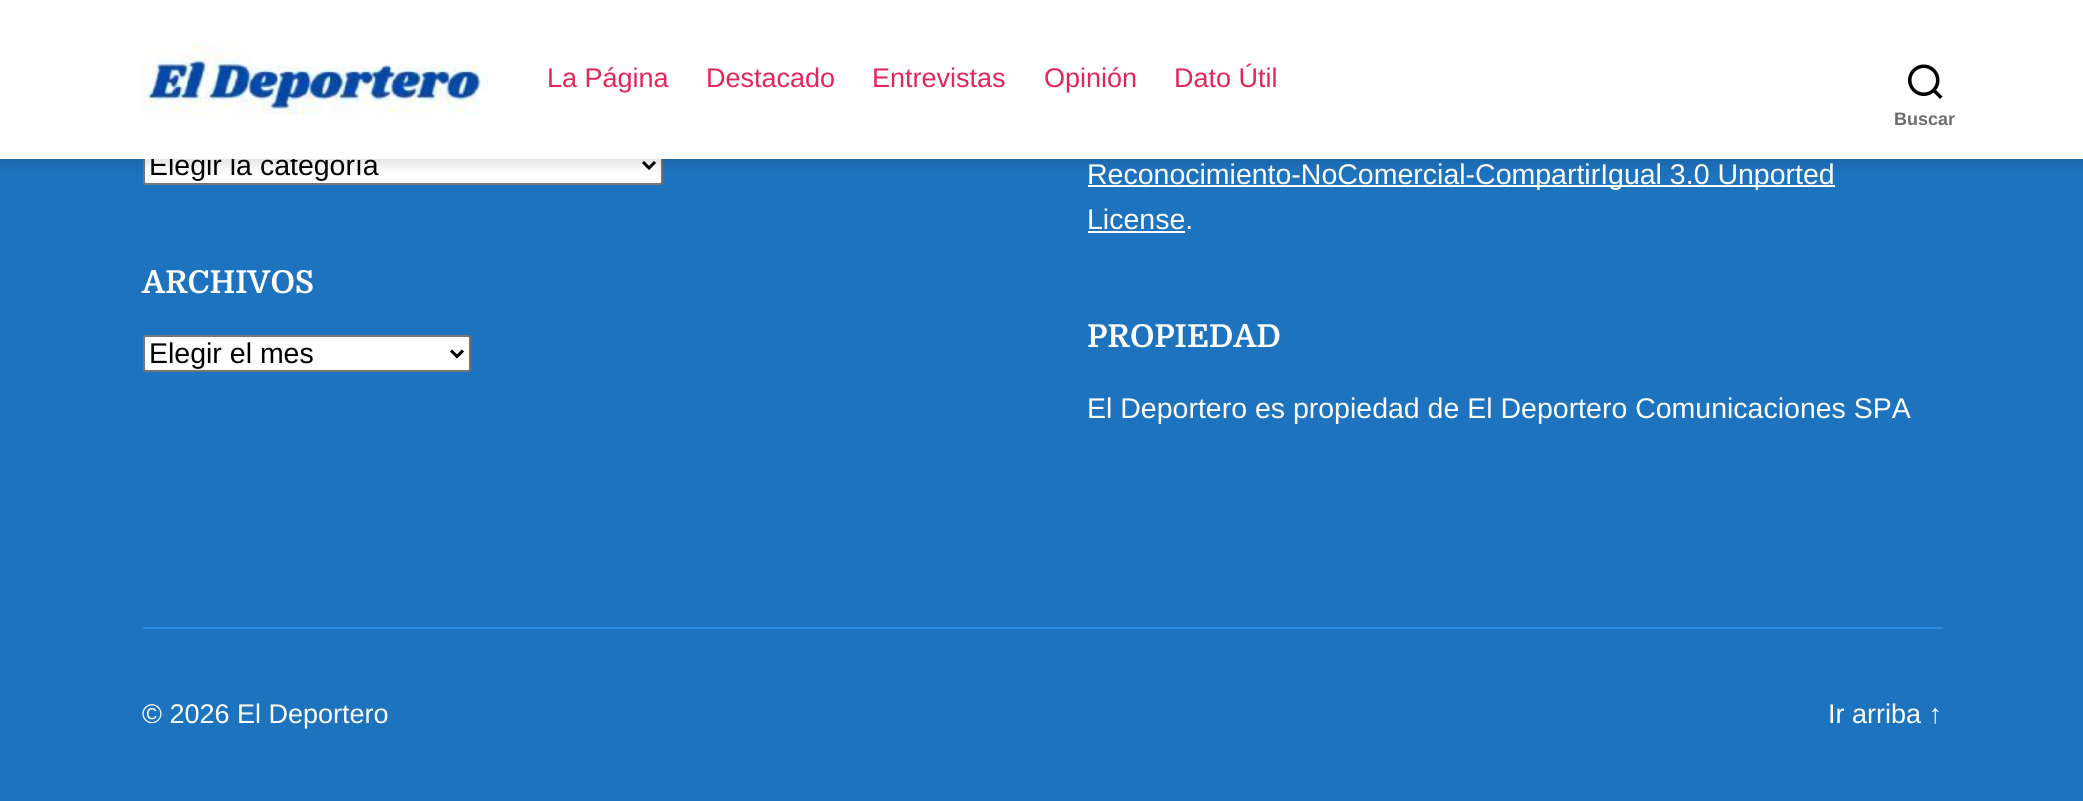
import math
import cairo


def round_path(ctx, x, y, w, h, r):
	ctx.new_sub_path()
	for i, (u, v) in enumerate([(x + w - r, y + h - r), (x + r, y + h - r), (x + r, y + r), (x + w - r, y + r)]):
		ctx.arc(u, v, r, i * math.pi / 2, (i + 1) * math.pi / 2)
	ctx.close_path()

def blur_box(ctx, x, y, w, h, r, blur, alpha):
	ctx.push_group_with_content(cairo.CONTENT_ALPHA)
	ctx.set_operator(cairo.OPERATOR_SOURCE)
	for i in range(15, -16, -2):
		e = blur * i / 6
		if min(w, h) + 2 * e > 0:
			ctx.set_source_rgba(0, 0, 0, alpha * math.erfc((i - 1) / 8.5) / 2)
			round_path(ctx, x - e, y - e, w + 2 * e, h + 2 * e, max(0, min(r + e + blur * .6, min(w, h) / 2 + e)))
			ctx.fill()
	ctx.mask(ctx.pop_group())

def paste(ctx, path, x, y, w, h):
	ctx.save()
	ctx.set_source_surface(cairo.ImageSurface.create_from_png(path), x, y)
	ctx.rectangle(x, y, w, h)
	ctx.fill()
	ctx.restore()

def draw(ctx):
	ctx.set_source_rgb(0.118, 0.451, 0.745)
	ctx.paint()
	ctx.set_source_rgb(1, 1, 1)
	round_path(ctx, 144, 148, 518, 36, 2)
	ctx.fill_preserve()
	ctx.set_source_rgb(0.463, 0.463, 0.463)
	ctx.stroke()
	ctx.new_path()
	ctx.move_to(643, 162)
	ctx.line_to(649, 168)
	ctx.line_to(655, 162)
	ctx.set_source_rgb(0, 0, 0)
	ctx.set_line_width(3)
	ctx.stroke()
	ctx.set_source_rgb(1, 1, 1)
	ctx.rectangle(1088, 185, 747, 2)
	ctx.fill()
	ctx.set_source_rgb(0, 0, 0)
	blur_box(ctx, 0, 3, 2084, 159, 0, 7.5, 0.16)
	ctx.select_font_face('Liberation Sans')
	ctx.set_font_size(28.5)
	ctx.set_source_rgb(0, 0, 0)
	ctx.move_to(149, 175)
	ctx.show_text('Elegir la categoría')
	ctx.set_source_rgb(1, 1, 1)
	ctx.rectangle(0, 0, 2083, 159)
	ctx.fill()
	paste(ctx, 'media/1.png', 142, 42, 346, 74)
	ctx.set_font_size(27)
	ctx.set_source_rgb(0.886, 0.149, 0.345)
	for x, y, s in [
		(547, 87, 'La Página'),
		(706, 87, 'Destacado'),
		(872, 87, 'Entrevistas'),
		(1044, 87, 'Opinión'),
		(1174, 87, 'Dato Útil'),
	]:
		ctx.move_to(x, y)
		ctx.show_text(s)
	paste(ctx, 'media/2.png', 1908, 64, 35, 35)
	ctx.select_font_face('Liberation Sans', cairo.FONT_SLANT_NORMAL, cairo.FONT_WEIGHT_BOLD)
	ctx.set_font_size(18)
	ctx.set_source_rgb(0.427, 0.427, 0.427)
	ctx.move_to(1894, 125)
	ctx.show_text('Buscar')
	ctx.set_source_rgb(0.165, 0.541, 0.875)
	ctx.rectangle(143, 627, 1800, 2)
	ctx.fill()
	ctx.select_font_face('Domine', cairo.FONT_SLANT_NORMAL, cairo.FONT_WEIGHT_BOLD)
	ctx.set_font_size(31.5)
	ctx.set_source_rgb(1, 1, 1)
	ctx.move_to(142, 293)
	ctx.show_text('ARCHIVOS')
	round_path(ctx, 144, 336, 326, 35, 2)
	ctx.fill_preserve()
	ctx.set_source_rgb(0.463, 0.463, 0.463)
	ctx.set_line_width(2)
	ctx.stroke()
	ctx.new_path()
	ctx.move_to(451, 350.5)
	ctx.line_to(457, 356.5)
	ctx.line_to(463, 350.5)
	ctx.set_source_rgb(0, 0, 0)
	ctx.set_line_width(3)
	ctx.stroke()
	ctx.select_font_face('Liberation Sans')
	ctx.set_font_size(28.5)
	ctx.move_to(149, 363)
	ctx.show_text('Elegir el mes')
	ctx.set_source_rgb(1, 1, 1)
	ctx.move_to(1087, 184)
	ctx.show_text('Reconocimiento-NoComercial-CompartirIgual 3.0 Unported')
	ctx.move_to(1087, 229)
	ctx.show_text('License.')
	ctx.rectangle(1088, 231, 97, 2)
	ctx.fill()
	ctx.select_font_face('Domine', cairo.FONT_SLANT_NORMAL, cairo.FONT_WEIGHT_BOLD)
	ctx.set_font_size(31.5)
	ctx.move_to(1087, 347)
	ctx.show_text('PROPIEDAD')
	ctx.select_font_face('Liberation Sans')
	ctx.set_font_size(28.5)
	ctx.move_to(1087, 418)
	ctx.show_text('El Deportero es propiedad de El Deportero Comunicaciones SPA')
	ctx.set_font_size(27)
	ctx.move_to(142, 723)
	ctx.show_text('© 2026 El Deportero')
	ctx.move_to(1828, 723)
	ctx.show_text('Ir arriba ↑')


surface = cairo.ImageSurface(cairo.FORMAT_RGB24, 2083, 801)
ctx = cairo.Context(surface)
options = cairo.FontOptions()
options.set_hint_metrics(cairo.HINT_METRICS_OFF)
options.set_hint_style(cairo.HINT_STYLE_NONE)
ctx.set_font_options(options)
ctx.set_miter_limit(4)
draw(ctx)
surface.write_to_png('image.png')
